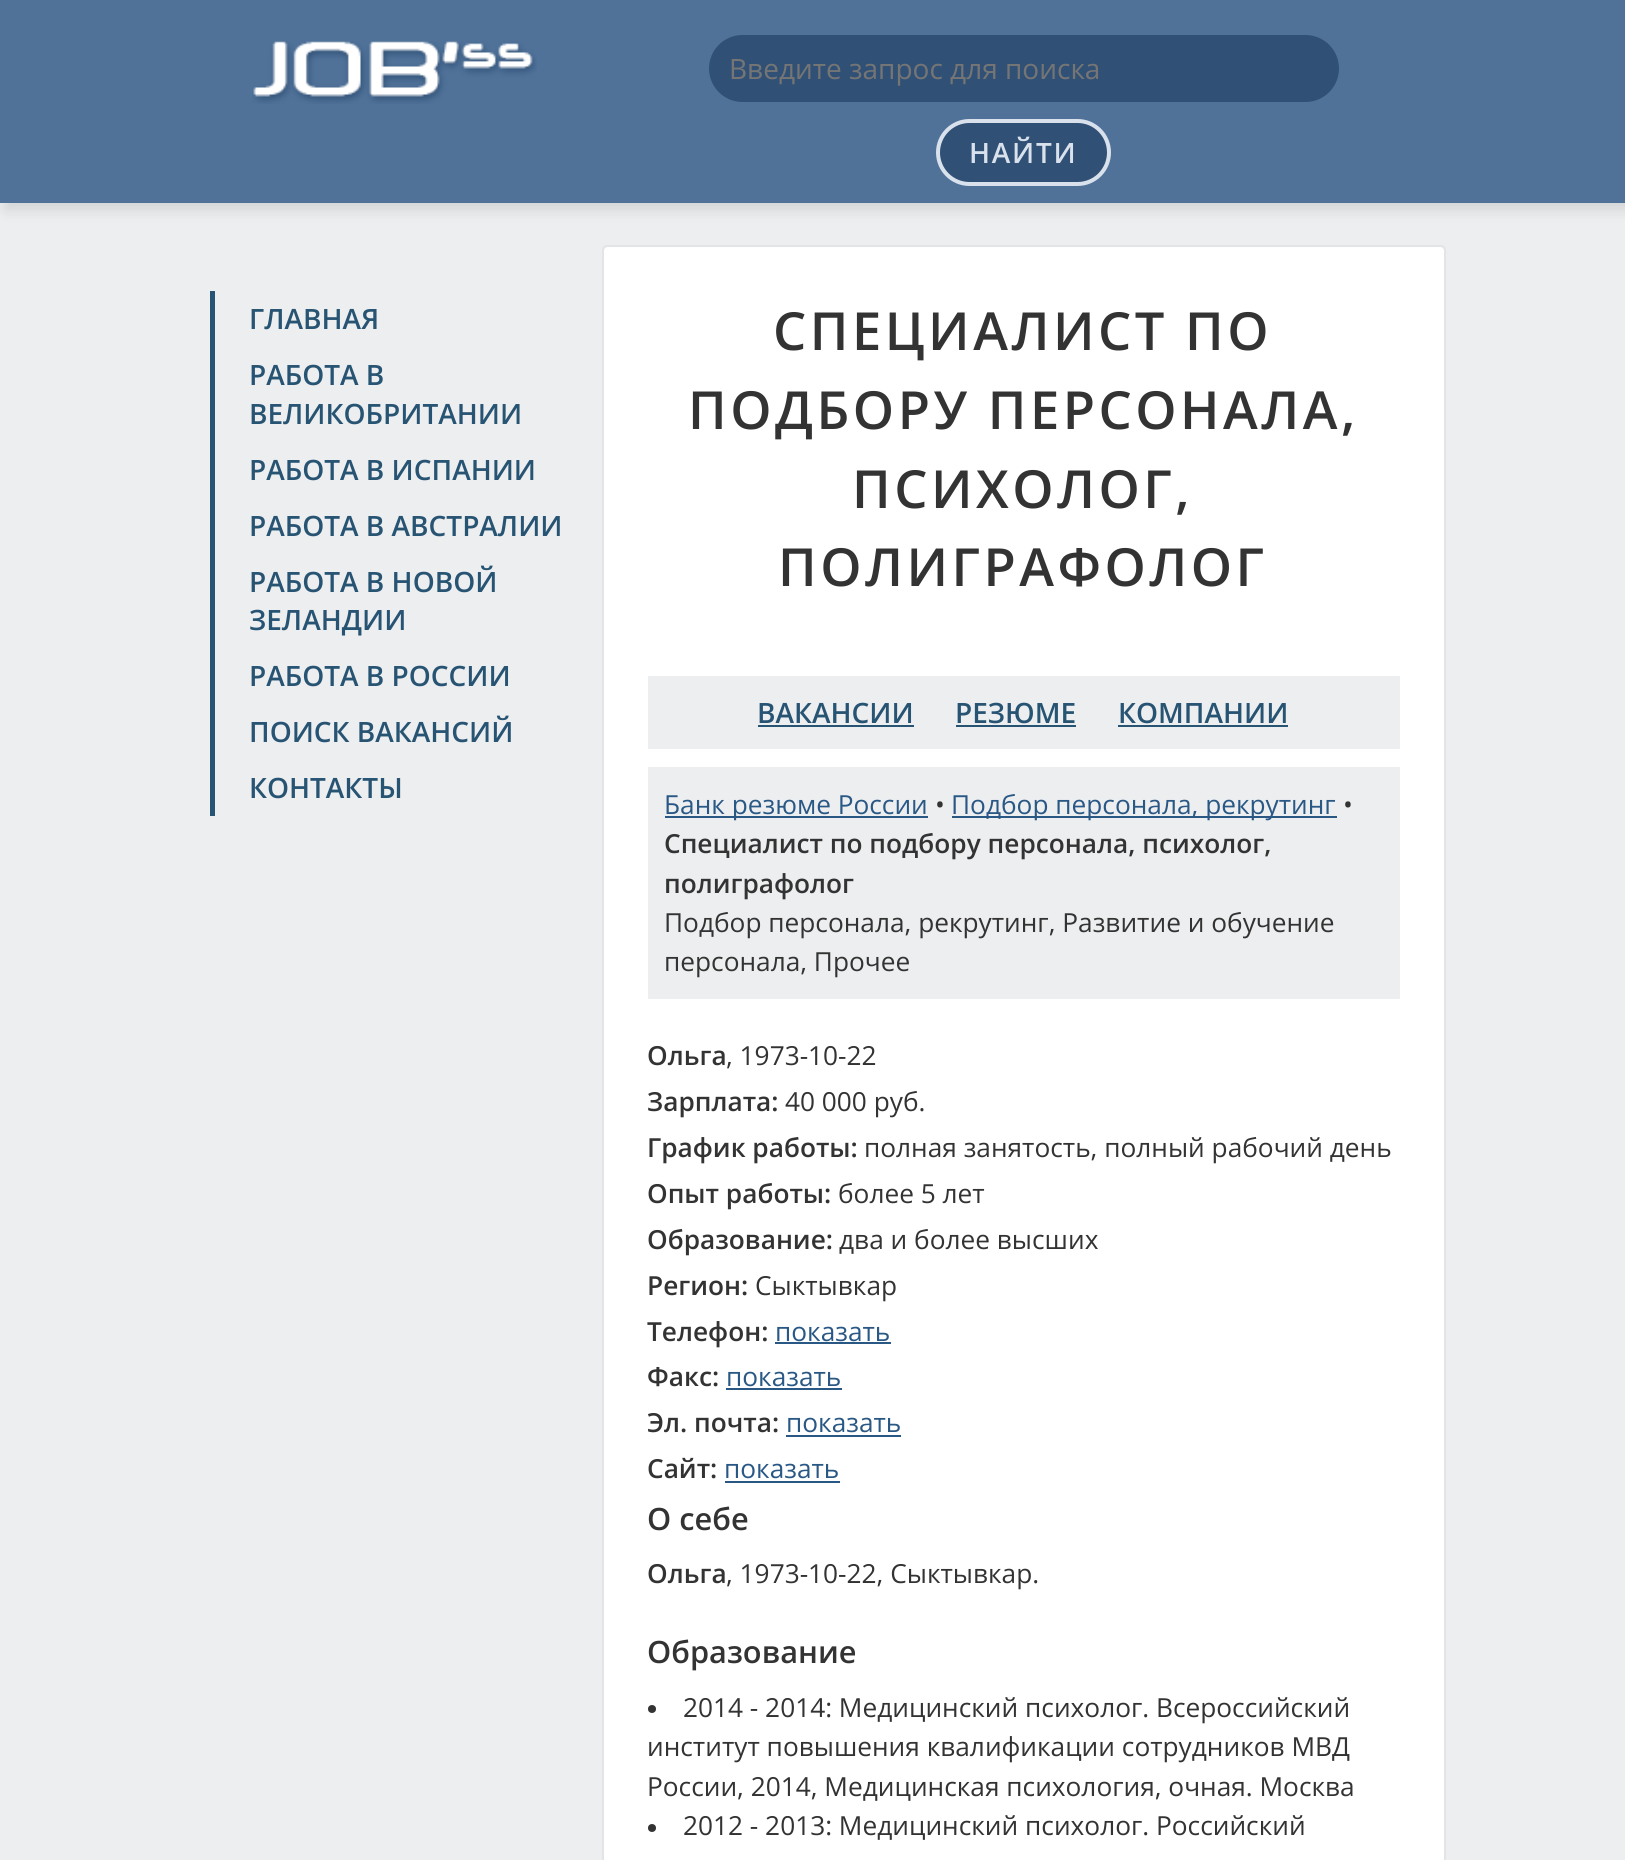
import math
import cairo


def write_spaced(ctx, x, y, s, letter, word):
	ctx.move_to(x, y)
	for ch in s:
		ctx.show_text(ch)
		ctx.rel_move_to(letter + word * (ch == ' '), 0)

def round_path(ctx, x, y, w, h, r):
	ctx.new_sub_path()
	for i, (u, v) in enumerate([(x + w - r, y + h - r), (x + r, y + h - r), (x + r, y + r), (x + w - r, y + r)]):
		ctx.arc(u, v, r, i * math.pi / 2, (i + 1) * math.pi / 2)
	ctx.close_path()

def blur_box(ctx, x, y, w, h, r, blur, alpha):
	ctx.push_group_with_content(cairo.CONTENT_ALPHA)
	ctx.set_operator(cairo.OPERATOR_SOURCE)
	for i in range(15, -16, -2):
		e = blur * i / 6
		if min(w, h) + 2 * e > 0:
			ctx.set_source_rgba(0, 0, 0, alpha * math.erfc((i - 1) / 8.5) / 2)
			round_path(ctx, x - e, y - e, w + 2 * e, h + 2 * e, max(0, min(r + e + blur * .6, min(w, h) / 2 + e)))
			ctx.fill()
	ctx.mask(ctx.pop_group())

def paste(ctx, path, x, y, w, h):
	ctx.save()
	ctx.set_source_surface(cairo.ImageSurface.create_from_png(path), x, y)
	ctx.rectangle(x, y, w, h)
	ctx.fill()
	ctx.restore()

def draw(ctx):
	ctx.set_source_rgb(0.929, 0.933, 0.941)
	ctx.paint()
	ctx.set_source_rgb(0, 0, 0)
	blur_box(ctx, 5, 7, 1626, 203, 0, 7, 0.11)
	ctx.set_source_rgb(0.314, 0.447, 0.6)
	ctx.rectangle(0, 0, 1625, 203)
	ctx.fill()
	paste(ctx, 'media/1.png', 252, 41, 285, 63)
	ctx.set_source_rgb(0.188, 0.314, 0.459)
	round_path(ctx, 711, 37, 626, 63, 31.5)
	ctx.fill_preserve()
	ctx.set_line_width(4)
	ctx.stroke()
	ctx.select_font_face('Open Sans')
	ctx.set_font_size(28)
	ctx.set_source_rgb(0.459, 0.459, 0.459)
	ctx.move_to(729, 79)
	ctx.show_text('Введите запрос для поиска')
	ctx.set_source_rgb(0.188, 0.314, 0.459)
	round_path(ctx, 938, 121, 171, 63, 31.5)
	ctx.fill_preserve()
	ctx.set_source_rgb(0.851, 0.886, 0.925)
	ctx.stroke()
	ctx.select_font_face('Open Sans SemiBold')
	write_spaced(ctx, 969, 163, 'НАЙТИ', 1.75, 0)
	ctx.set_source_rgb(0.157, 0.329, 0.451)
	ctx.rectangle(210, 291, 5, 525)
	ctx.fill()
	for x, y, s in [
		(249, 329, 'ГЛАВНАЯ'),
		(249, 385, 'РАБОТА В'),
		(249, 424, 'ВЕЛИКОБРИТАНИИ'),
		(249, 480, 'РАБОТА В ИСПАНИИ'),
		(249, 536, 'РАБОТА В АВСТРАЛИИ'),
		(249, 592, 'РАБОТА В НОВОЙ'),
		(249, 630, 'ЗЕЛАНДИИ'),
		(249, 686, 'РАБОТА В РОССИИ'),
		(249, 742, 'ПОИСК ВАКАНСИЙ'),
		(249, 798, 'КОНТАКТЫ'),
	]:
		ctx.move_to(x, y)
		ctx.show_text(s)
	round_path(ctx, 603, 246, 842, 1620, 4)
	ctx.set_source_rgb(0.89, 0.894, 0.91)
	ctx.set_line_width(2)
	ctx.stroke()
	ctx.set_source_rgb(1, 1, 1)
	round_path(ctx, 604, 247, 840, 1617, 4)
	ctx.fill()
	ctx.set_font_size(52.5)
	ctx.set_source_rgb(0.2, 0.2, 0.2)
	for x, y, s in [
		(773, 350, 'СПЕЦИАЛИСТ ПО'),
		(688, 429, 'ПОДБОРУ ПЕРСОНАЛА,'),
		(852, 508, 'ПСИХОЛОГ,'),
		(778, 586, 'ПОЛИГРАФОЛОГ'),
	]:
		write_spaced(ctx, x, y, s, 3.5, 0)
	ctx.set_source_rgb(0.929, 0.933, 0.941)
	ctx.rectangle(648, 676, 752, 73)
	ctx.fill()
	ctx.set_font_size(28)
	ctx.set_source_rgb(0.157, 0.329, 0.451)
	ctx.move_to(757, 723)
	ctx.show_text('ВАКАНСИИ')
	ctx.rectangle(758, 725, 156, 2)
	ctx.fill()
	ctx.move_to(955, 723)
	ctx.show_text('РЕЗЮМЕ')
	ctx.rectangle(956, 725, 120, 2)
	ctx.fill()
	ctx.move_to(1118, 723)
	ctx.show_text('КОМПАНИИ')
	ctx.rectangle(1118, 725, 170, 2)
	ctx.fill()
	ctx.set_source_rgb(0.929, 0.933, 0.941)
	ctx.rectangle(648, 767, 752, 232)
	ctx.fill()
	ctx.set_source_rgb(0.165, 0.345, 0.522)
	ctx.rectangle(665, 816, 263, 2)
	ctx.fill()
	ctx.select_font_face('Open Sans')
	ctx.set_font_size(26.25)
	ctx.move_to(664, 814)
	ctx.show_text('Банк резюме России')
	ctx.set_source_rgb(0.2, 0.2, 0.2)
	ctx.move_to(935, 814)
	ctx.show_text('•')
	ctx.set_source_rgb(0.165, 0.345, 0.522)
	ctx.rectangle(952, 816, 385, 2)
	ctx.fill()
	ctx.move_to(951, 814)
	ctx.show_text('Подбор персонала, рекрутинг')
	ctx.set_source_rgb(0.2, 0.2, 0.2)
	ctx.move_to(1343, 814)
	ctx.show_text('•')
	ctx.select_font_face('Open Sans SemiBold')
	ctx.move_to(664, 853)
	ctx.show_text('Специалист по подбору персонала, психолог,')
	ctx.move_to(664, 893)
	ctx.show_text('полиграфолог')
	ctx.select_font_face('Open Sans')
	ctx.move_to(664, 932)
	ctx.show_text('Подбор персонала, рекрутинг, Развитие и обучение')
	ctx.move_to(664, 971)
	ctx.show_text('персонала, Прочее')
	ctx.select_font_face('Open Sans SemiBold')
	ctx.move_to(647, 1065)
	ctx.show_text('Ольга')
	ctx.select_font_face('Open Sans')
	ctx.move_to(726, 1065)
	ctx.show_text(', 1973-10-22')
	ctx.select_font_face('Open Sans SemiBold')
	ctx.move_to(647, 1111)
	ctx.show_text('Зарплата:')
	ctx.select_font_face('Open Sans')
	ctx.move_to(785, 1111)
	ctx.show_text('40 000 руб.')
	ctx.select_font_face('Open Sans SemiBold')
	ctx.move_to(647, 1157)
	ctx.show_text('График работы:')
	ctx.select_font_face('Open Sans')
	ctx.move_to(864, 1157)
	ctx.show_text('полная занятость, полный рабочий день')
	ctx.select_font_face('Open Sans SemiBold')
	ctx.move_to(647, 1203)
	ctx.show_text('Опыт работы:')
	ctx.select_font_face('Open Sans')
	ctx.move_to(838, 1203)
	ctx.show_text('более 5 лет')
	ctx.select_font_face('Open Sans SemiBold')
	ctx.move_to(647, 1249)
	ctx.show_text('Образование:')
	ctx.select_font_face('Open Sans')
	ctx.move_to(839, 1249)
	ctx.show_text('два и более высших')
	ctx.select_font_face('Open Sans SemiBold')
	ctx.move_to(647, 1295)
	ctx.show_text('Регион:')
	ctx.select_font_face('Open Sans')
	ctx.move_to(755, 1295)
	ctx.show_text('Сыктывкар')
	ctx.select_font_face('Open Sans SemiBold')
	ctx.move_to(647, 1341)
	ctx.show_text('Телефон:')
	ctx.select_font_face('Open Sans')
	ctx.set_source_rgb(0.165, 0.345, 0.522)
	ctx.move_to(775, 1341)
	ctx.show_text('показать')
	ctx.rectangle(775, 1342, 116, 2)
	ctx.fill()
	ctx.select_font_face('Open Sans SemiBold')
	ctx.set_source_rgb(0.2, 0.2, 0.2)
	ctx.move_to(647, 1386)
	ctx.show_text('Факс:')
	ctx.select_font_face('Open Sans')
	ctx.set_source_rgb(0.165, 0.345, 0.522)
	ctx.move_to(726, 1386)
	ctx.show_text('показать')
	ctx.rectangle(726, 1388, 116, 2)
	ctx.fill()
	ctx.select_font_face('Open Sans SemiBold')
	ctx.set_source_rgb(0.2, 0.2, 0.2)
	ctx.move_to(647, 1432)
	ctx.show_text('Эл. почта:')
	ctx.select_font_face('Open Sans')
	ctx.set_source_rgb(0.165, 0.345, 0.522)
	ctx.move_to(786, 1432)
	ctx.show_text('показать')
	ctx.rectangle(786, 1435, 115, 2)
	ctx.fill()
	ctx.select_font_face('Open Sans SemiBold')
	ctx.set_source_rgb(0.2, 0.2, 0.2)
	ctx.move_to(647, 1478)
	ctx.show_text('Сайт:')
	ctx.select_font_face('Open Sans')
	ctx.set_source_rgb(0.165, 0.345, 0.522)
	ctx.move_to(724, 1478)
	ctx.show_text('показать')
	ctx.rectangle(725, 1481, 115, 2)
	ctx.fill()
	ctx.select_font_face('Open Sans SemiBold')
	ctx.set_font_size(30.75)
	ctx.set_source_rgb(0.2, 0.2, 0.2)
	ctx.move_to(647, 1530)
	ctx.show_text('О себе')
	ctx.set_font_size(26.25)
	ctx.move_to(647, 1583)
	ctx.show_text('Ольга')
	ctx.select_font_face('Open Sans')
	ctx.move_to(726, 1583)
	ctx.show_text(', 1973-10-22, Сыктывкар.')
	ctx.select_font_face('Open Sans SemiBold')
	ctx.set_font_size(30.75)
	ctx.move_to(647, 1663)
	ctx.show_text('Образование')
	ctx.new_path()
	ctx.arc(652, 1709, 4, 0, 2 * math.pi)
	ctx.fill()
	ctx.select_font_face('Open Sans')
	ctx.set_font_size(26.25)
	for x, y, s in [
		(683, 1717, '2014 - 2014: Медицинский психолог. Всероссийский'),
		(647, 1756, 'институт повышения квалификации сотрудников МВД'),
		(647, 1796, 'России, 2014, Медицинская психология, очная. Москва'),
	]:
		ctx.move_to(x, y)
		ctx.show_text(s)
	ctx.new_path()
	ctx.arc(652, 1828, 4, 0, 2 * math.pi)
	ctx.fill()
	ctx.move_to(683, 1835)
	ctx.show_text('2012 - 2013: Медицинский психолог. Российский')


surface = cairo.ImageSurface(cairo.FORMAT_RGB24, 1625, 1860)
ctx = cairo.Context(surface)
options = cairo.FontOptions()
options.set_hint_metrics(cairo.HINT_METRICS_OFF)
options.set_hint_style(cairo.HINT_STYLE_NONE)
ctx.set_font_options(options)
ctx.set_miter_limit(4)
draw(ctx)
surface.write_to_png('image.png')
